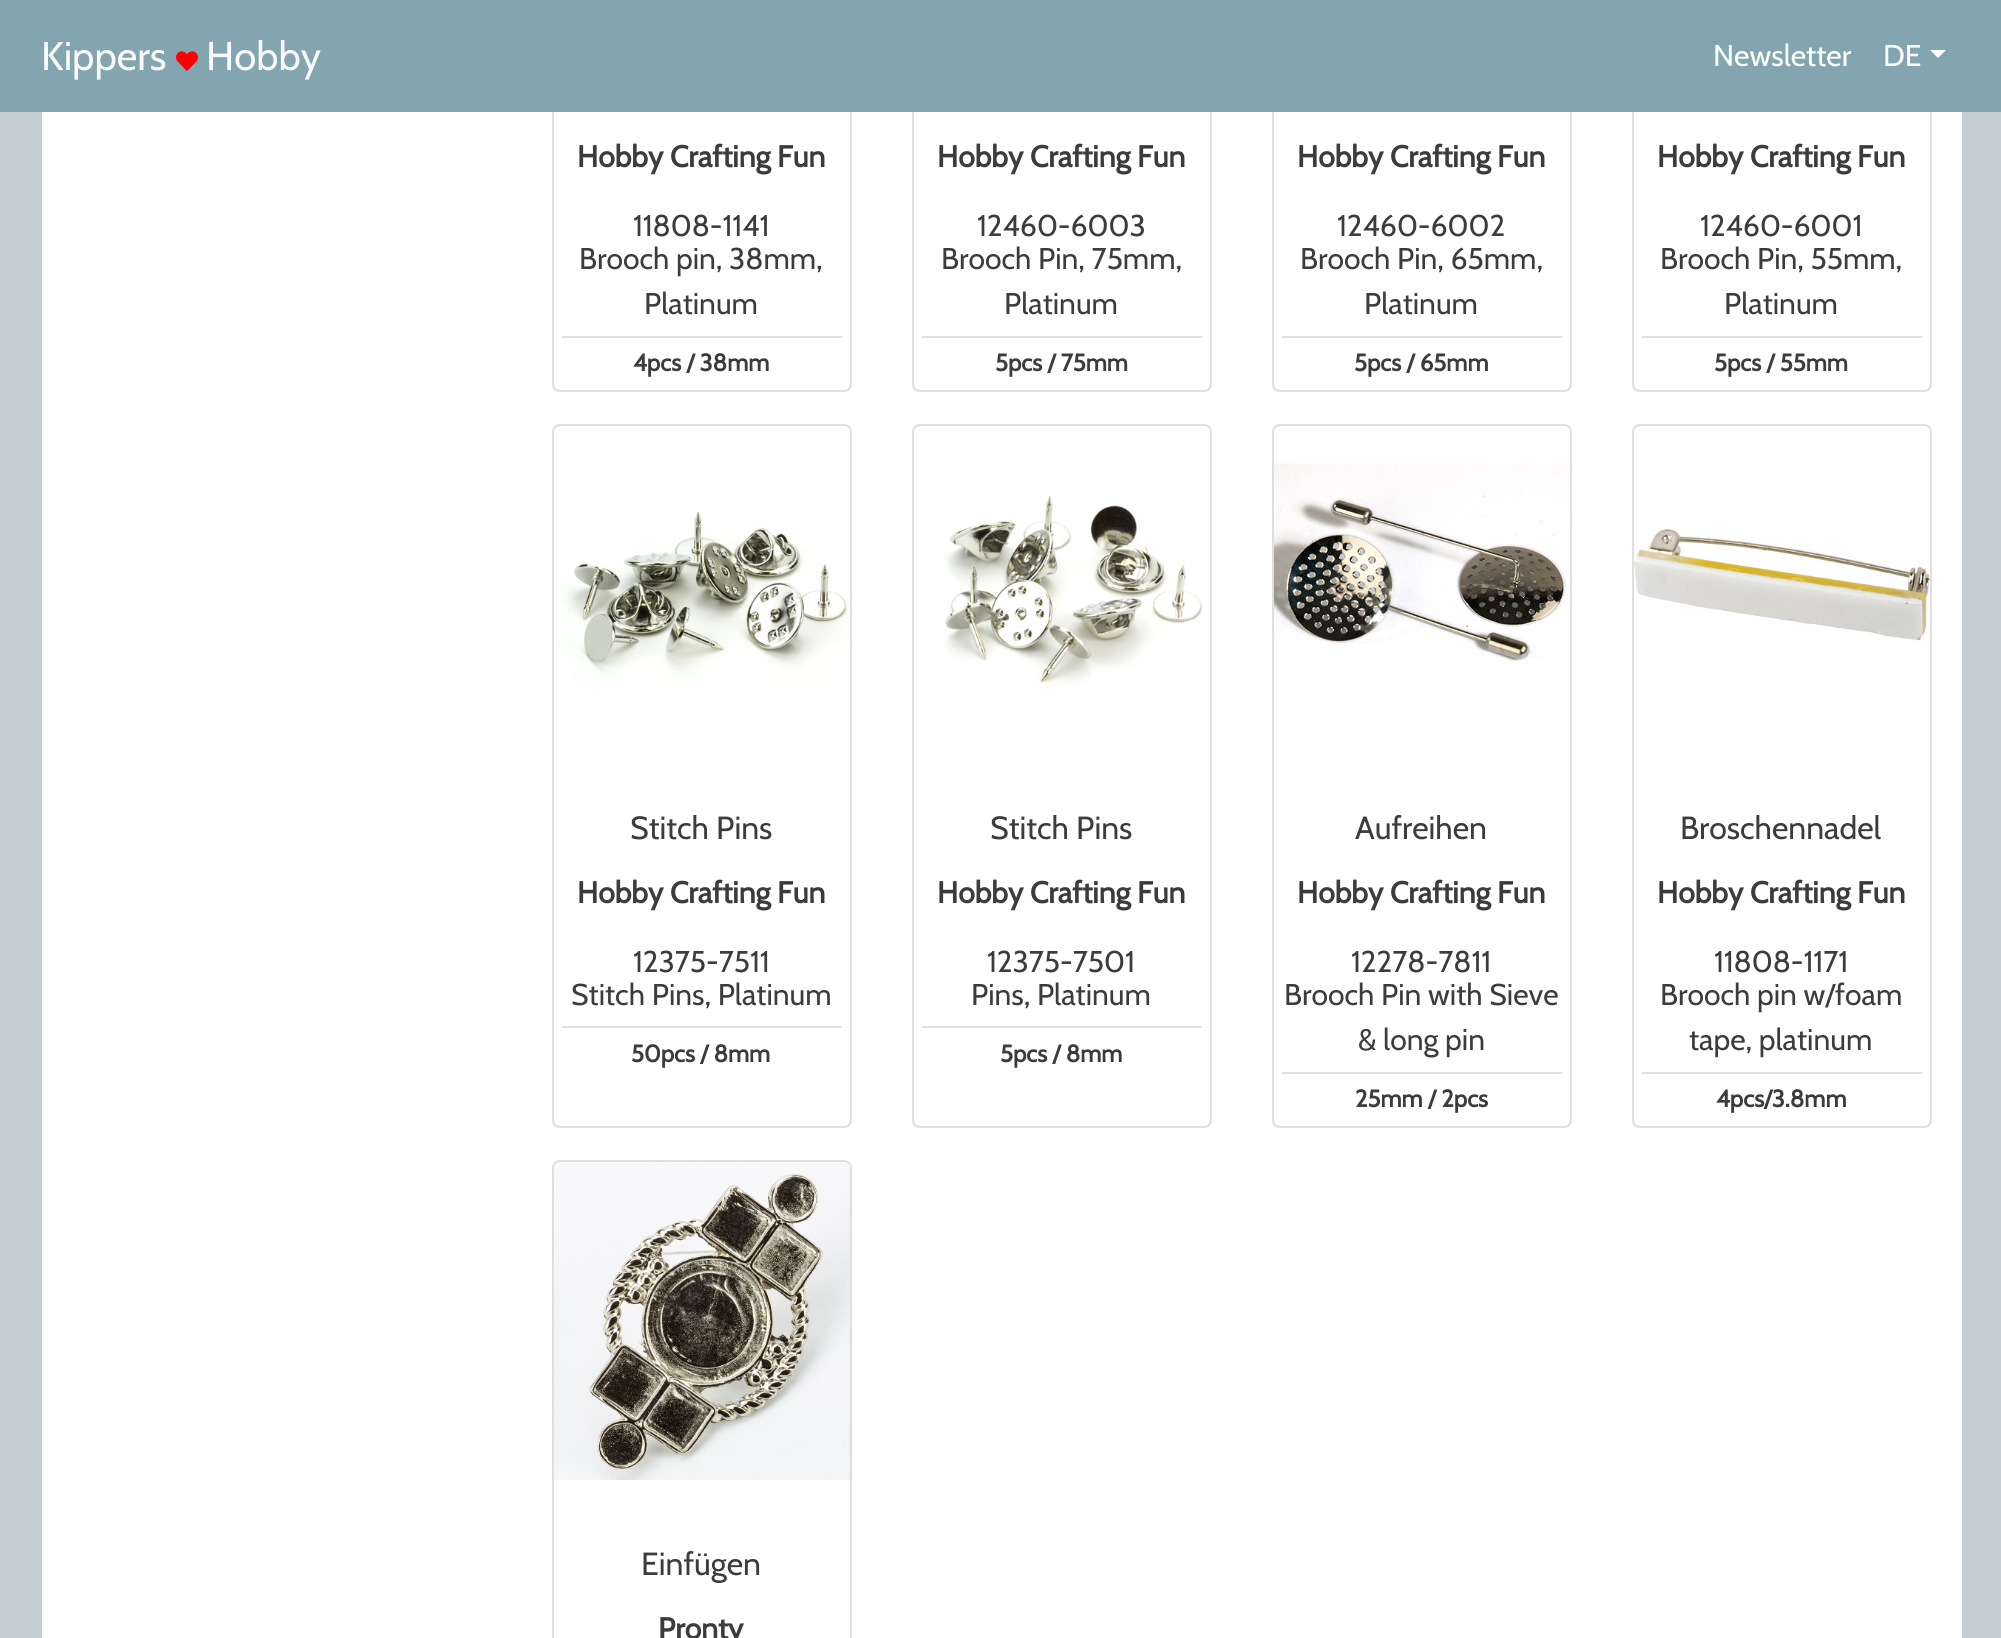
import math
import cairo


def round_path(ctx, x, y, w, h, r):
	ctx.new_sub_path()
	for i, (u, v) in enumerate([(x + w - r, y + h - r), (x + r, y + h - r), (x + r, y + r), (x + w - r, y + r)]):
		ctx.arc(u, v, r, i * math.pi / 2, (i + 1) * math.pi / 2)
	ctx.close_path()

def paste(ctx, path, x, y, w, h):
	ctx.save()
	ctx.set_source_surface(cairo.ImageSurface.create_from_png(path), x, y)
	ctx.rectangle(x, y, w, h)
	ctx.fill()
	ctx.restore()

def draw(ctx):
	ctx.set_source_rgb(0.769, 0.804, 0.824)
	ctx.paint()
	ctx.set_source_rgb(1, 1, 1)
	ctx.rectangle(42, 112, 1920, 1526)
	ctx.fill()
	round_path(ctx, 553, -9, 298, 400, 7)
	ctx.set_source_rgb(0.875, 0.875, 0.875)
	ctx.stroke()
	round_path(ctx, 913, -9, 298, 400, 7)
	ctx.stroke()
	round_path(ctx, 1273, -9, 298, 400, 7)
	ctx.stroke()
	round_path(ctx, 1633, -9, 298, 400, 7)
	ctx.stroke()
	ctx.set_source_rgb(0.514, 0.647, 0.69)
	ctx.rectangle(0, 0, 2001, 112)
	ctx.fill()
	ctx.select_font_face('Cabin')
	ctx.set_font_size(40)
	ctx.set_source_rgb(0.973, 0.976, 0.98)
	ctx.move_to(41, 70)
	ctx.show_text('Kippers')
	paste(ctx, 'media/1.png', 176, 51, 22, 20)
	ctx.move_to(206, 70)
	ctx.show_text('Hobby')
	ctx.set_font_size(30)
	ctx.set_source_rgb(1, 1, 1)
	ctx.move_to(1713, 66)
	ctx.show_text('Newsletter')
	ctx.move_to(1883, 66)
	ctx.show_text('DE')
	ctx.new_path()
	ctx.move_to(1930, 50)
	ctx.line_to(1946, 50)
	ctx.line_to(1938, 58)
	ctx.close_path()
	ctx.fill()
	ctx.select_font_face('Cabin', cairo.FONT_SLANT_NORMAL, cairo.FONT_WEIGHT_BOLD)
	ctx.set_source_rgb(0.235, 0.235, 0.235)
	ctx.move_to(577, 167)
	ctx.show_text('Hobby Crafting Fun')
	ctx.select_font_face('Cabin')
	for x, y, s in [
		(633, 236, '11808-1141'),
		(579, 269, 'Brooch pin, 38mm,'),
		(644, 314, 'Platinum'),
	]:
		ctx.move_to(x, y)
		ctx.show_text(s)
	ctx.set_source_rgb(0.871, 0.886, 0.902)
	ctx.rectangle(562, 336, 280, 2)
	ctx.fill()
	ctx.select_font_face('Cabin', cairo.FONT_SLANT_NORMAL, cairo.FONT_WEIGHT_BOLD)
	ctx.set_font_size(24)
	ctx.set_source_rgb(0.235, 0.235, 0.235)
	ctx.move_to(633, 371)
	ctx.show_text('4pcs / 38mm')
	ctx.set_font_size(30)
	ctx.move_to(937, 167)
	ctx.show_text('Hobby Crafting Fun')
	ctx.select_font_face('Cabin')
	for x, y, s in [
		(977, 236, '12460-6003'),
		(941, 269, 'Brooch Pin, 75mm,'),
		(1004, 314, 'Platinum'),
	]:
		ctx.move_to(x, y)
		ctx.show_text(s)
	ctx.set_source_rgb(0.871, 0.886, 0.902)
	ctx.rectangle(922, 336, 280, 2)
	ctx.fill()
	ctx.select_font_face('Cabin', cairo.FONT_SLANT_NORMAL, cairo.FONT_WEIGHT_BOLD)
	ctx.set_font_size(24)
	ctx.set_source_rgb(0.235, 0.235, 0.235)
	ctx.move_to(995, 371)
	ctx.show_text('5pcs / 75mm')
	ctx.set_font_size(30)
	ctx.move_to(1297, 167)
	ctx.show_text('Hobby Crafting Fun')
	ctx.select_font_face('Cabin')
	for x, y, s in [
		(1337, 236, '12460-6002'),
		(1300, 269, 'Brooch Pin, 65mm,'),
		(1364, 314, 'Platinum'),
	]:
		ctx.move_to(x, y)
		ctx.show_text(s)
	ctx.set_source_rgb(0.871, 0.886, 0.902)
	ctx.rectangle(1282, 336, 280, 2)
	ctx.fill()
	ctx.select_font_face('Cabin', cairo.FONT_SLANT_NORMAL, cairo.FONT_WEIGHT_BOLD)
	ctx.set_font_size(24)
	ctx.set_source_rgb(0.235, 0.235, 0.235)
	ctx.move_to(1354, 371)
	ctx.show_text('5pcs / 65mm')
	ctx.set_font_size(30)
	ctx.move_to(1657, 167)
	ctx.show_text('Hobby Crafting Fun')
	ctx.select_font_face('Cabin')
	for x, y, s in [
		(1700, 236, '12460-6001'),
		(1660, 269, 'Brooch Pin, 55mm,'),
		(1724, 314, 'Platinum'),
	]:
		ctx.move_to(x, y)
		ctx.show_text(s)
	ctx.set_source_rgb(0.871, 0.886, 0.902)
	ctx.rectangle(1642, 336, 280, 2)
	ctx.fill()
	ctx.select_font_face('Cabin', cairo.FONT_SLANT_NORMAL, cairo.FONT_WEIGHT_BOLD)
	ctx.set_font_size(24)
	ctx.set_source_rgb(0.235, 0.235, 0.235)
	ctx.move_to(1714, 371)
	ctx.show_text('5pcs / 55mm')
	round_path(ctx, 553, 425, 298, 702, 7)
	ctx.set_source_rgb(0.875, 0.875, 0.875)
	ctx.stroke()
	paste(ctx, 'media/2.png', 554, 426, 296, 273)
	ctx.select_font_face('Cabin')
	ctx.set_font_size(32)
	ctx.set_source_rgb(0.235, 0.235, 0.235)
	ctx.move_to(630, 839)
	ctx.show_text('Stitch Pins')
	ctx.select_font_face('Cabin', cairo.FONT_SLANT_NORMAL, cairo.FONT_WEIGHT_BOLD)
	ctx.set_font_size(30)
	ctx.move_to(577, 903)
	ctx.show_text('Hobby Crafting Fun')
	ctx.select_font_face('Cabin')
	ctx.move_to(633, 972)
	ctx.show_text('12375-7511')
	ctx.move_to(571, 1005)
	ctx.show_text('Stitch Pins, Platinum')
	ctx.set_source_rgb(0.871, 0.886, 0.902)
	ctx.rectangle(562, 1026, 280, 2)
	ctx.fill()
	ctx.select_font_face('Cabin', cairo.FONT_SLANT_NORMAL, cairo.FONT_WEIGHT_BOLD)
	ctx.set_font_size(24)
	ctx.set_source_rgb(0.235, 0.235, 0.235)
	ctx.move_to(631, 1062)
	ctx.show_text('50pcs / 8mm')
	round_path(ctx, 913, 425, 298, 702, 7)
	ctx.set_source_rgb(0.875, 0.875, 0.875)
	ctx.stroke()
	paste(ctx, 'media/3.png', 914, 426, 296, 259)
	ctx.select_font_face('Cabin')
	ctx.set_font_size(32)
	ctx.set_source_rgb(0.235, 0.235, 0.235)
	ctx.move_to(990, 839)
	ctx.show_text('Stitch Pins')
	ctx.select_font_face('Cabin', cairo.FONT_SLANT_NORMAL, cairo.FONT_WEIGHT_BOLD)
	ctx.set_font_size(30)
	ctx.move_to(937, 903)
	ctx.show_text('Hobby Crafting Fun')
	ctx.select_font_face('Cabin')
	ctx.move_to(987, 972)
	ctx.show_text('12375-7501')
	ctx.move_to(971, 1005)
	ctx.show_text('Pins, Platinum')
	ctx.set_source_rgb(0.871, 0.886, 0.902)
	ctx.rectangle(922, 1026, 280, 2)
	ctx.fill()
	ctx.select_font_face('Cabin', cairo.FONT_SLANT_NORMAL, cairo.FONT_WEIGHT_BOLD)
	ctx.set_font_size(24)
	ctx.set_source_rgb(0.235, 0.235, 0.235)
	ctx.move_to(1000, 1062)
	ctx.show_text('5pcs / 8mm')
	round_path(ctx, 1273, 425, 298, 702, 7)
	ctx.set_source_rgb(0.875, 0.875, 0.875)
	ctx.stroke()
	paste(ctx, 'media/4.png', 1274, 426, 296, 236)
	ctx.select_font_face('Cabin')
	ctx.set_font_size(32)
	ctx.set_source_rgb(0.235, 0.235, 0.235)
	ctx.move_to(1355, 839)
	ctx.show_text('Aufreihen')
	ctx.select_font_face('Cabin', cairo.FONT_SLANT_NORMAL, cairo.FONT_WEIGHT_BOLD)
	ctx.set_font_size(30)
	ctx.move_to(1297, 903)
	ctx.show_text('Hobby Crafting Fun')
	ctx.select_font_face('Cabin')
	for x, y, s in [
		(1351, 972, '12278-7811'),
		(1284, 1005, 'Brooch Pin with Sieve'),
		(1358, 1050, '& long pin'),
	]:
		ctx.move_to(x, y)
		ctx.show_text(s)
	ctx.set_source_rgb(0.871, 0.886, 0.902)
	ctx.rectangle(1282, 1072, 280, 2)
	ctx.fill()
	ctx.select_font_face('Cabin', cairo.FONT_SLANT_NORMAL, cairo.FONT_WEIGHT_BOLD)
	ctx.set_font_size(24)
	ctx.set_source_rgb(0.235, 0.235, 0.235)
	ctx.move_to(1355, 1107)
	ctx.show_text('25mm / 2pcs')
	round_path(ctx, 1633, 425, 298, 702, 7)
	ctx.set_source_rgb(0.875, 0.875, 0.875)
	ctx.stroke()
	paste(ctx, 'media/5.png', 1634, 426, 296, 215)
	ctx.select_font_face('Cabin')
	ctx.set_font_size(32)
	ctx.set_source_rgb(0.235, 0.235, 0.235)
	ctx.move_to(1680, 839)
	ctx.show_text('Broschennadel')
	ctx.select_font_face('Cabin', cairo.FONT_SLANT_NORMAL, cairo.FONT_WEIGHT_BOLD)
	ctx.set_font_size(30)
	ctx.move_to(1657, 903)
	ctx.show_text('Hobby Crafting Fun')
	ctx.select_font_face('Cabin')
	for x, y, s in [
		(1714, 972, '11808-1171'),
		(1660, 1005, 'Brooch pin w/foam'),
		(1689, 1050, 'tape, platinum'),
	]:
		ctx.move_to(x, y)
		ctx.show_text(s)
	ctx.set_source_rgb(0.871, 0.886, 0.902)
	ctx.rectangle(1642, 1072, 280, 2)
	ctx.fill()
	ctx.select_font_face('Cabin', cairo.FONT_SLANT_NORMAL, cairo.FONT_WEIGHT_BOLD)
	ctx.set_font_size(24)
	ctx.set_source_rgb(0.235, 0.235, 0.235)
	ctx.move_to(1716, 1107)
	ctx.show_text('4pcs/3.8mm')
	round_path(ctx, 553, 1161, 298, 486, 7)
	ctx.set_source_rgb(0.875, 0.875, 0.875)
	ctx.stroke()
	paste(ctx, 'media/6.png', 554, 1162, 296, 318)
	ctx.select_font_face('Cabin')
	ctx.set_font_size(32)
	ctx.set_source_rgb(0.235, 0.235, 0.235)
	ctx.move_to(641, 1575)
	ctx.show_text('Einfügen')
	ctx.select_font_face('Cabin', cairo.FONT_SLANT_NORMAL, cairo.FONT_WEIGHT_BOLD)
	ctx.set_font_size(30)
	ctx.move_to(658, 1639)
	ctx.show_text('Pronty')


surface = cairo.ImageSurface(cairo.FORMAT_RGB24, 2001, 1638)
ctx = cairo.Context(surface)
options = cairo.FontOptions()
options.set_hint_metrics(cairo.HINT_METRICS_OFF)
options.set_hint_style(cairo.HINT_STYLE_NONE)
ctx.set_font_options(options)
ctx.set_miter_limit(4)
draw(ctx)
surface.write_to_png('image.png')
